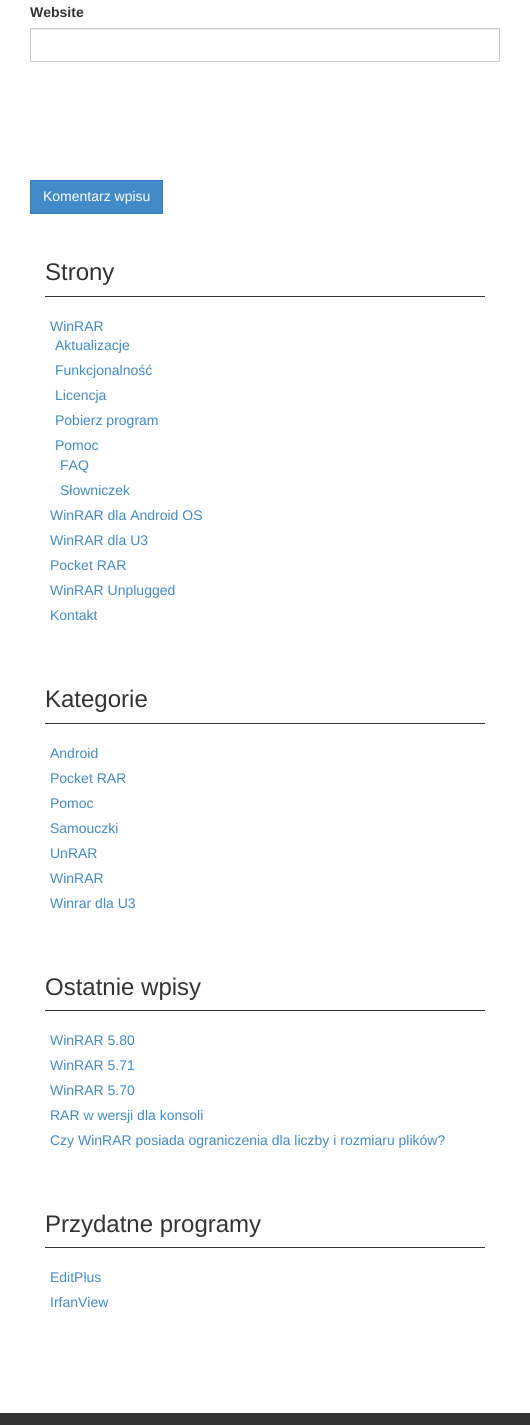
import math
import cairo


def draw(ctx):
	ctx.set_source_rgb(1, 1, 1)
	ctx.paint()
	ctx.select_font_face('Liberation Sans', cairo.FONT_SLANT_NORMAL, cairo.FONT_WEIGHT_BOLD)
	ctx.set_font_size(14)
	ctx.set_source_rgb(0.2, 0.2, 0.2)
	ctx.move_to(30, 17)
	ctx.show_text('Website')
	ctx.set_source_rgb(0.925, 0.925, 0.925)
	ctx.rectangle(31, 29, 468, 1)
	ctx.fill()
	ctx.rectangle(30.5, 28.5, 469, 33)
	ctx.set_source_rgb(0.8, 0.8, 0.8)
	ctx.set_line_width(1)
	ctx.stroke()
	ctx.set_source_rgb(0.259, 0.545, 0.792)
	ctx.rectangle(30.5, 180.5, 132, 33)
	ctx.fill_preserve()
	ctx.set_source_rgb(0.208, 0.494, 0.741)
	ctx.stroke()
	ctx.select_font_face('Liberation Sans')
	ctx.set_source_rgb(1, 1, 1)
	ctx.move_to(43, 201)
	ctx.show_text('Komentarz wpisu')
	ctx.set_source_rgb(0.2, 0.2, 0.2)
	ctx.rectangle(45, 296, 440, 1)
	ctx.fill()
	ctx.set_font_size(24)
	ctx.move_to(45, 280)
	ctx.show_text('Strony')
	ctx.set_font_size(14)
	ctx.set_source_rgb(0.259, 0.545, 0.792)
	for x, y, s in [
		(50, 331, 'WinRAR'),
		(55, 350, 'Aktualizacje'),
		(55, 375, 'Funkcjonalność'),
		(55, 400, 'Licencja'),
		(55, 425, 'Pobierz program'),
		(55, 450, 'Pomoc'),
		(60, 470, 'FAQ'),
		(60, 495, 'Słowniczek'),
		(50, 520, 'WinRAR dla Android OS'),
		(50, 545, 'WinRAR dla U3'),
		(50, 570, 'Pocket RAR'),
		(50, 595, 'WinRAR Unplugged'),
		(50, 620, 'Kontakt'),
	]:
		ctx.move_to(x, y)
		ctx.show_text(s)
	ctx.set_source_rgb(0.2, 0.2, 0.2)
	ctx.rectangle(45, 723, 440, 1)
	ctx.fill()
	ctx.set_font_size(24)
	ctx.move_to(45, 707)
	ctx.show_text('Kategorie')
	ctx.set_font_size(14)
	ctx.set_source_rgb(0.259, 0.545, 0.792)
	for x, y, s in [
		(50, 758, 'Android'),
		(50, 783, 'Pocket RAR'),
		(50, 808, 'Pomoc'),
		(50, 833, 'Samouczki'),
		(50, 858, 'UnRAR'),
		(50, 883, 'WinRAR'),
		(50, 908, 'Winrar dla U3'),
	]:
		ctx.move_to(x, y)
		ctx.show_text(s)
	ctx.set_source_rgb(0.2, 0.2, 0.2)
	ctx.rectangle(45, 1010, 440, 1)
	ctx.fill()
	ctx.set_font_size(24)
	ctx.move_to(45, 995)
	ctx.show_text('Ostatnie wpisy')
	ctx.set_font_size(14)
	ctx.set_source_rgb(0.259, 0.545, 0.792)
	for x, y, s in [
		(50, 1045, 'WinRAR 5.80'),
		(50, 1070, 'WinRAR 5.71'),
		(50, 1095, 'WinRAR 5.70'),
		(50, 1120, 'RAR w wersji dla konsoli'),
		(50, 1145, 'Czy WinRAR posiada ograniczenia dla liczby i rozmiaru plików?'),
	]:
		ctx.move_to(x, y)
		ctx.show_text(s)
	ctx.set_source_rgb(0.2, 0.2, 0.2)
	ctx.rectangle(45, 1247, 440, 1)
	ctx.fill()
	ctx.set_font_size(24)
	ctx.move_to(45, 1232)
	ctx.show_text('Przydatne programy')
	ctx.set_font_size(14)
	ctx.set_source_rgb(0.259, 0.545, 0.792)
	ctx.move_to(50, 1282)
	ctx.show_text('EditPlus')
	ctx.move_to(50, 1307)
	ctx.show_text('IrfanView')
	ctx.set_source_rgb(0.2, 0.2, 0.2)
	ctx.rectangle(0, 1413, 530, 12)
	ctx.fill()


surface = cairo.ImageSurface(cairo.FORMAT_RGB24, 530, 1425)
ctx = cairo.Context(surface)
options = cairo.FontOptions()
options.set_hint_metrics(cairo.HINT_METRICS_OFF)
options.set_hint_style(cairo.HINT_STYLE_NONE)
ctx.set_font_options(options)
ctx.set_miter_limit(4)
draw(ctx)
surface.write_to_png('image.png')
